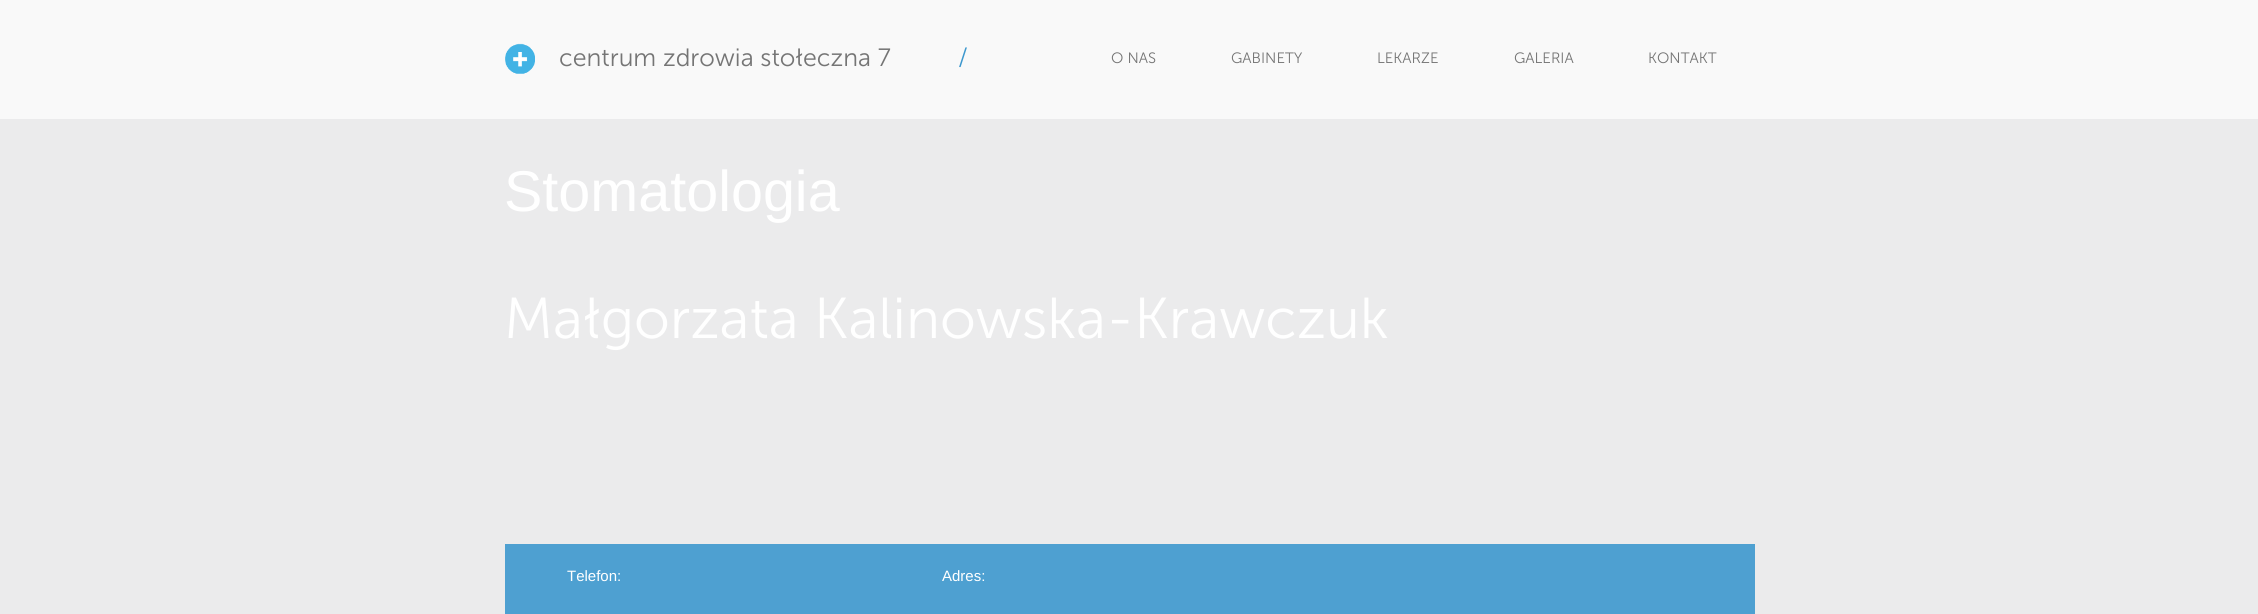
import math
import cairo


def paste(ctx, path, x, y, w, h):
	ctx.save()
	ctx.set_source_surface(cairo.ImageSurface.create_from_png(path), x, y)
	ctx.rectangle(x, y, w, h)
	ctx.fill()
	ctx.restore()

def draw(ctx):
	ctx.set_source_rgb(0.918, 0.918, 0.925)
	ctx.paint()
	ctx.set_source_rgb(0.973, 0.973, 0.973)
	ctx.rectangle(0, 0, 2258, 119)
	ctx.fill()
	paste(ctx, 'media/1.png', 505, 43, 30, 31)
	ctx.select_font_face('Museo Sans Light')
	ctx.set_font_size(25)
	ctx.set_source_rgb(0.459, 0.459, 0.459)
	ctx.move_to(559, 66)
	ctx.show_text('centrum zdrowia stołeczna 7')
	ctx.set_source_rgb(0.239, 0.596, 0.808)
	ctx.move_to(958, 66)
	ctx.show_text('/')
	ctx.set_font_size(15)
	ctx.set_source_rgb(0.459, 0.459, 0.459)
	for x, y, s in [
		(1111, 63, 'O NAS'),
		(1231, 63, 'GABINETY'),
		(1377, 63, 'LEKARZE'),
		(1514, 63, 'GALERIA'),
		(1648, 63, 'KONTAKT'),
	]:
		ctx.move_to(x, y)
		ctx.show_text(s)
	ctx.select_font_face('Liberation Sans')
	ctx.set_font_size(57.5)
	ctx.set_source_rgb(1, 1, 1)
	ctx.move_to(504, 211)
	ctx.show_text('Stomatologia')
	ctx.select_font_face('Museo Sans Light')
	ctx.move_to(504, 338)
	ctx.show_text('Małgorzata Kalinowska-Krawczuk')
	ctx.set_source_rgb(0.306, 0.627, 0.82)
	ctx.rectangle(505, 544, 1250, 70)
	ctx.fill()
	ctx.select_font_face('Liberation Sans')
	ctx.set_font_size(15)
	ctx.set_source_rgb(1, 1, 1)
	ctx.move_to(567, 581)
	ctx.show_text('Telefon:')
	ctx.move_to(942, 581)
	ctx.show_text('Adres:')


surface = cairo.ImageSurface(cairo.FORMAT_RGB24, 2258, 614)
ctx = cairo.Context(surface)
options = cairo.FontOptions()
options.set_hint_metrics(cairo.HINT_METRICS_OFF)
options.set_hint_style(cairo.HINT_STYLE_NONE)
ctx.set_font_options(options)
ctx.set_miter_limit(4)
draw(ctx)
surface.write_to_png('image.png')
